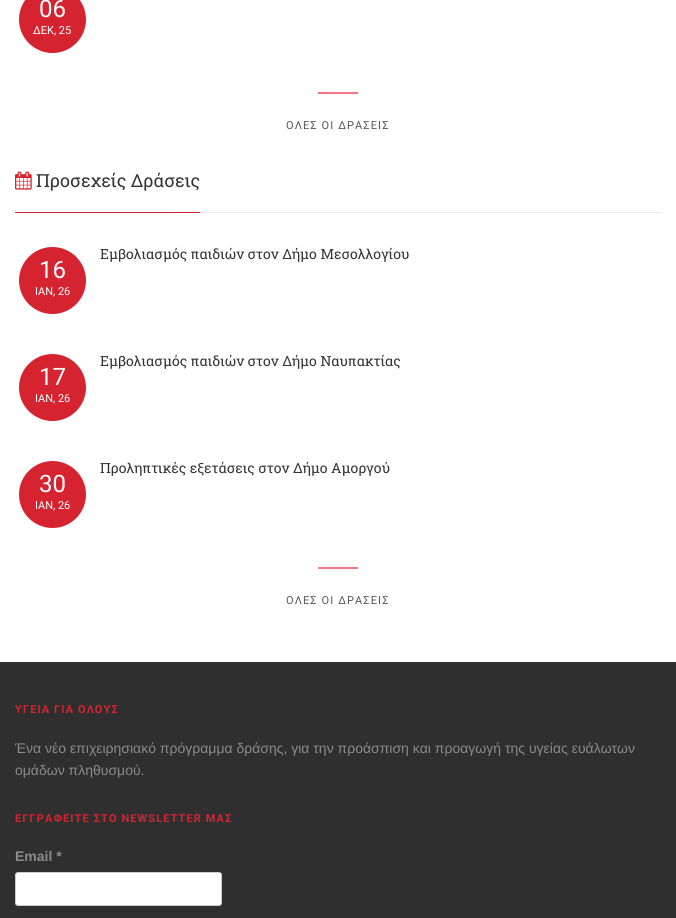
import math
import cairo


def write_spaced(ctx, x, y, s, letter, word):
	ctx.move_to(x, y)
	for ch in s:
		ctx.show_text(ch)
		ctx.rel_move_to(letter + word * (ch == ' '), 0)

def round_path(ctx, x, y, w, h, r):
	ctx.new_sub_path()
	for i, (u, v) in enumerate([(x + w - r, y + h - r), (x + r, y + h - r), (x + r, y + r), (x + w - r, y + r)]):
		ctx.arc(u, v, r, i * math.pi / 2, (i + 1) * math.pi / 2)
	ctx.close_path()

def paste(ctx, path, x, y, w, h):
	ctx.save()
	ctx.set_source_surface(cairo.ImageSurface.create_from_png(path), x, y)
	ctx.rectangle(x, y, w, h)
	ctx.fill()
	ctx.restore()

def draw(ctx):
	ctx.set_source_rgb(1, 1, 1)
	ctx.paint()
	ctx.set_source_rgb(0.835, 0.137, 0.184)
	ctx.arc(52.5, 19.5, 33.5, 0, 2 * math.pi)
	ctx.fill()
	ctx.select_font_face('Roboto')
	ctx.set_font_size(24)
	ctx.set_source_rgb(1, 1, 1)
	ctx.move_to(39, 17)
	ctx.show_text('06')
	ctx.set_font_size(11)
	ctx.move_to(33, 34)
	ctx.show_text('ΔΕΚ, 25')
	ctx.set_source_rgb(0.961, 0.463, 0.518)
	ctx.rectangle(318, 92, 40, 2)
	ctx.fill()
	ctx.set_source_rgb(0.333, 0.333, 0.333)
	write_spaced(ctx, 286, 129, 'ΟΛΕΣ ΟΙ ΔΡΑΣΕΙΣ', 1.1, 0)
	ctx.set_source_rgb(0.91, 0.91, 0.91)
	ctx.rectangle(200, 212, 461, 1)
	ctx.fill()
	ctx.set_source_rgb(0.835, 0.137, 0.184)
	ctx.rectangle(15, 212, 185, 1)
	ctx.fill()
	paste(ctx, 'media/1.png', 15, 171, 17, 19)
	ctx.select_font_face('Roboto Slab')
	ctx.set_font_size(18)
	ctx.set_source_rgb(0.2, 0.2, 0.2)
	ctx.move_to(36, 187)
	ctx.show_text('Προσεχείς Δράσεις')
	ctx.set_font_size(14)
	ctx.move_to(100, 259)
	ctx.show_text('Εμβολιασμός παιδιών στον Δήμο Μεσολλογίου')
	ctx.set_source_rgb(0.835, 0.137, 0.184)
	ctx.new_path()
	ctx.arc(52.5, 280.5, 33.5, 0, 2 * math.pi)
	ctx.fill()
	ctx.select_font_face('Roboto')
	ctx.set_font_size(24)
	ctx.set_source_rgb(1, 1, 1)
	ctx.move_to(39, 278)
	ctx.show_text('16')
	ctx.set_font_size(11)
	ctx.move_to(35, 295)
	ctx.show_text('ΙΑΝ, 26')
	ctx.select_font_face('Roboto Slab')
	ctx.set_font_size(14)
	ctx.set_source_rgb(0.2, 0.2, 0.2)
	ctx.move_to(100, 366)
	ctx.show_text('Εμβολιασμός παιδιών στον Δήμο Ναυπακτίας')
	ctx.set_source_rgb(0.835, 0.137, 0.184)
	ctx.new_path()
	ctx.arc(52.5, 387.5, 33.5, 0, 2 * math.pi)
	ctx.fill()
	ctx.select_font_face('Roboto')
	ctx.set_font_size(24)
	ctx.set_source_rgb(1, 1, 1)
	ctx.move_to(39, 385)
	ctx.show_text('17')
	ctx.set_font_size(11)
	ctx.move_to(35, 402)
	ctx.show_text('ΙΑΝ, 26')
	ctx.select_font_face('Roboto Slab')
	ctx.set_font_size(14)
	ctx.set_source_rgb(0.2, 0.2, 0.2)
	ctx.move_to(100, 473)
	ctx.show_text('Προληπτικές εξετάσεις στον Δήμο Αμοργού')
	ctx.set_source_rgb(0.835, 0.137, 0.184)
	ctx.new_path()
	ctx.arc(52.5, 494.5, 33.5, 0, 2 * math.pi)
	ctx.fill()
	ctx.select_font_face('Roboto')
	ctx.set_font_size(24)
	ctx.set_source_rgb(1, 1, 1)
	ctx.move_to(39, 492)
	ctx.show_text('30')
	ctx.set_font_size(11)
	ctx.move_to(35, 509)
	ctx.show_text('ΙΑΝ, 26')
	ctx.set_source_rgb(0.961, 0.463, 0.518)
	ctx.rectangle(318, 567, 40, 2)
	ctx.fill()
	ctx.set_source_rgb(0.333, 0.333, 0.333)
	write_spaced(ctx, 286, 604, 'ΟΛΕΣ ΟΙ ΔΡΑΣΕΙΣ', 1.1, 0)
	ctx.set_source_rgb(0.184, 0.184, 0.184)
	ctx.rectangle(0, 662, 676, 256)
	ctx.fill()
	ctx.select_font_face('Roboto', cairo.FONT_SLANT_NORMAL, cairo.FONT_WEIGHT_BOLD)
	ctx.set_source_rgb(0.835, 0.137, 0.184)
	write_spaced(ctx, 15, 713, 'ΥΓΕΙΑ ΓΙΑ ΟΛΟΥΣ', 1.1, 0)
	ctx.select_font_face('Liberation Sans')
	ctx.set_font_size(14)
	ctx.set_source_rgb(0.541, 0.541, 0.541)
	ctx.move_to(15, 753)
	ctx.show_text('Ένα νέο επιχειρησιακό πρόγραμμα δράσης, για την προάσπιση και προαγωγή της υγείας ευάλωτων')
	ctx.move_to(15, 775)
	ctx.show_text('ομάδων πληθυσμού.')
	ctx.select_font_face('Roboto', cairo.FONT_SLANT_NORMAL, cairo.FONT_WEIGHT_BOLD)
	ctx.set_font_size(11)
	ctx.set_source_rgb(0.835, 0.137, 0.184)
	write_spaced(ctx, 15, 822, 'ΕΓΓΡΑΦΕΙΤΕ ΣΤΟ NEWSLETTER ΜΑΣ', 1.1, 0)
	ctx.select_font_face('Liberation Sans', cairo.FONT_SLANT_NORMAL, cairo.FONT_WEIGHT_BOLD)
	ctx.set_font_size(14)
	ctx.set_source_rgb(0.541, 0.541, 0.541)
	ctx.move_to(15, 861)
	ctx.show_text('Email *')
	ctx.set_source_rgb(1, 1, 1)
	round_path(ctx, 15.5, 872.5, 206, 33, 2.5)
	ctx.fill_preserve()
	ctx.set_source_rgb(0.8, 0.8, 0.8)
	ctx.set_line_width(1)
	ctx.stroke()


surface = cairo.ImageSurface(cairo.FORMAT_RGB24, 676, 918)
ctx = cairo.Context(surface)
options = cairo.FontOptions()
options.set_hint_metrics(cairo.HINT_METRICS_OFF)
options.set_hint_style(cairo.HINT_STYLE_NONE)
ctx.set_font_options(options)
ctx.set_miter_limit(4)
draw(ctx)
surface.write_to_png('image.png')
